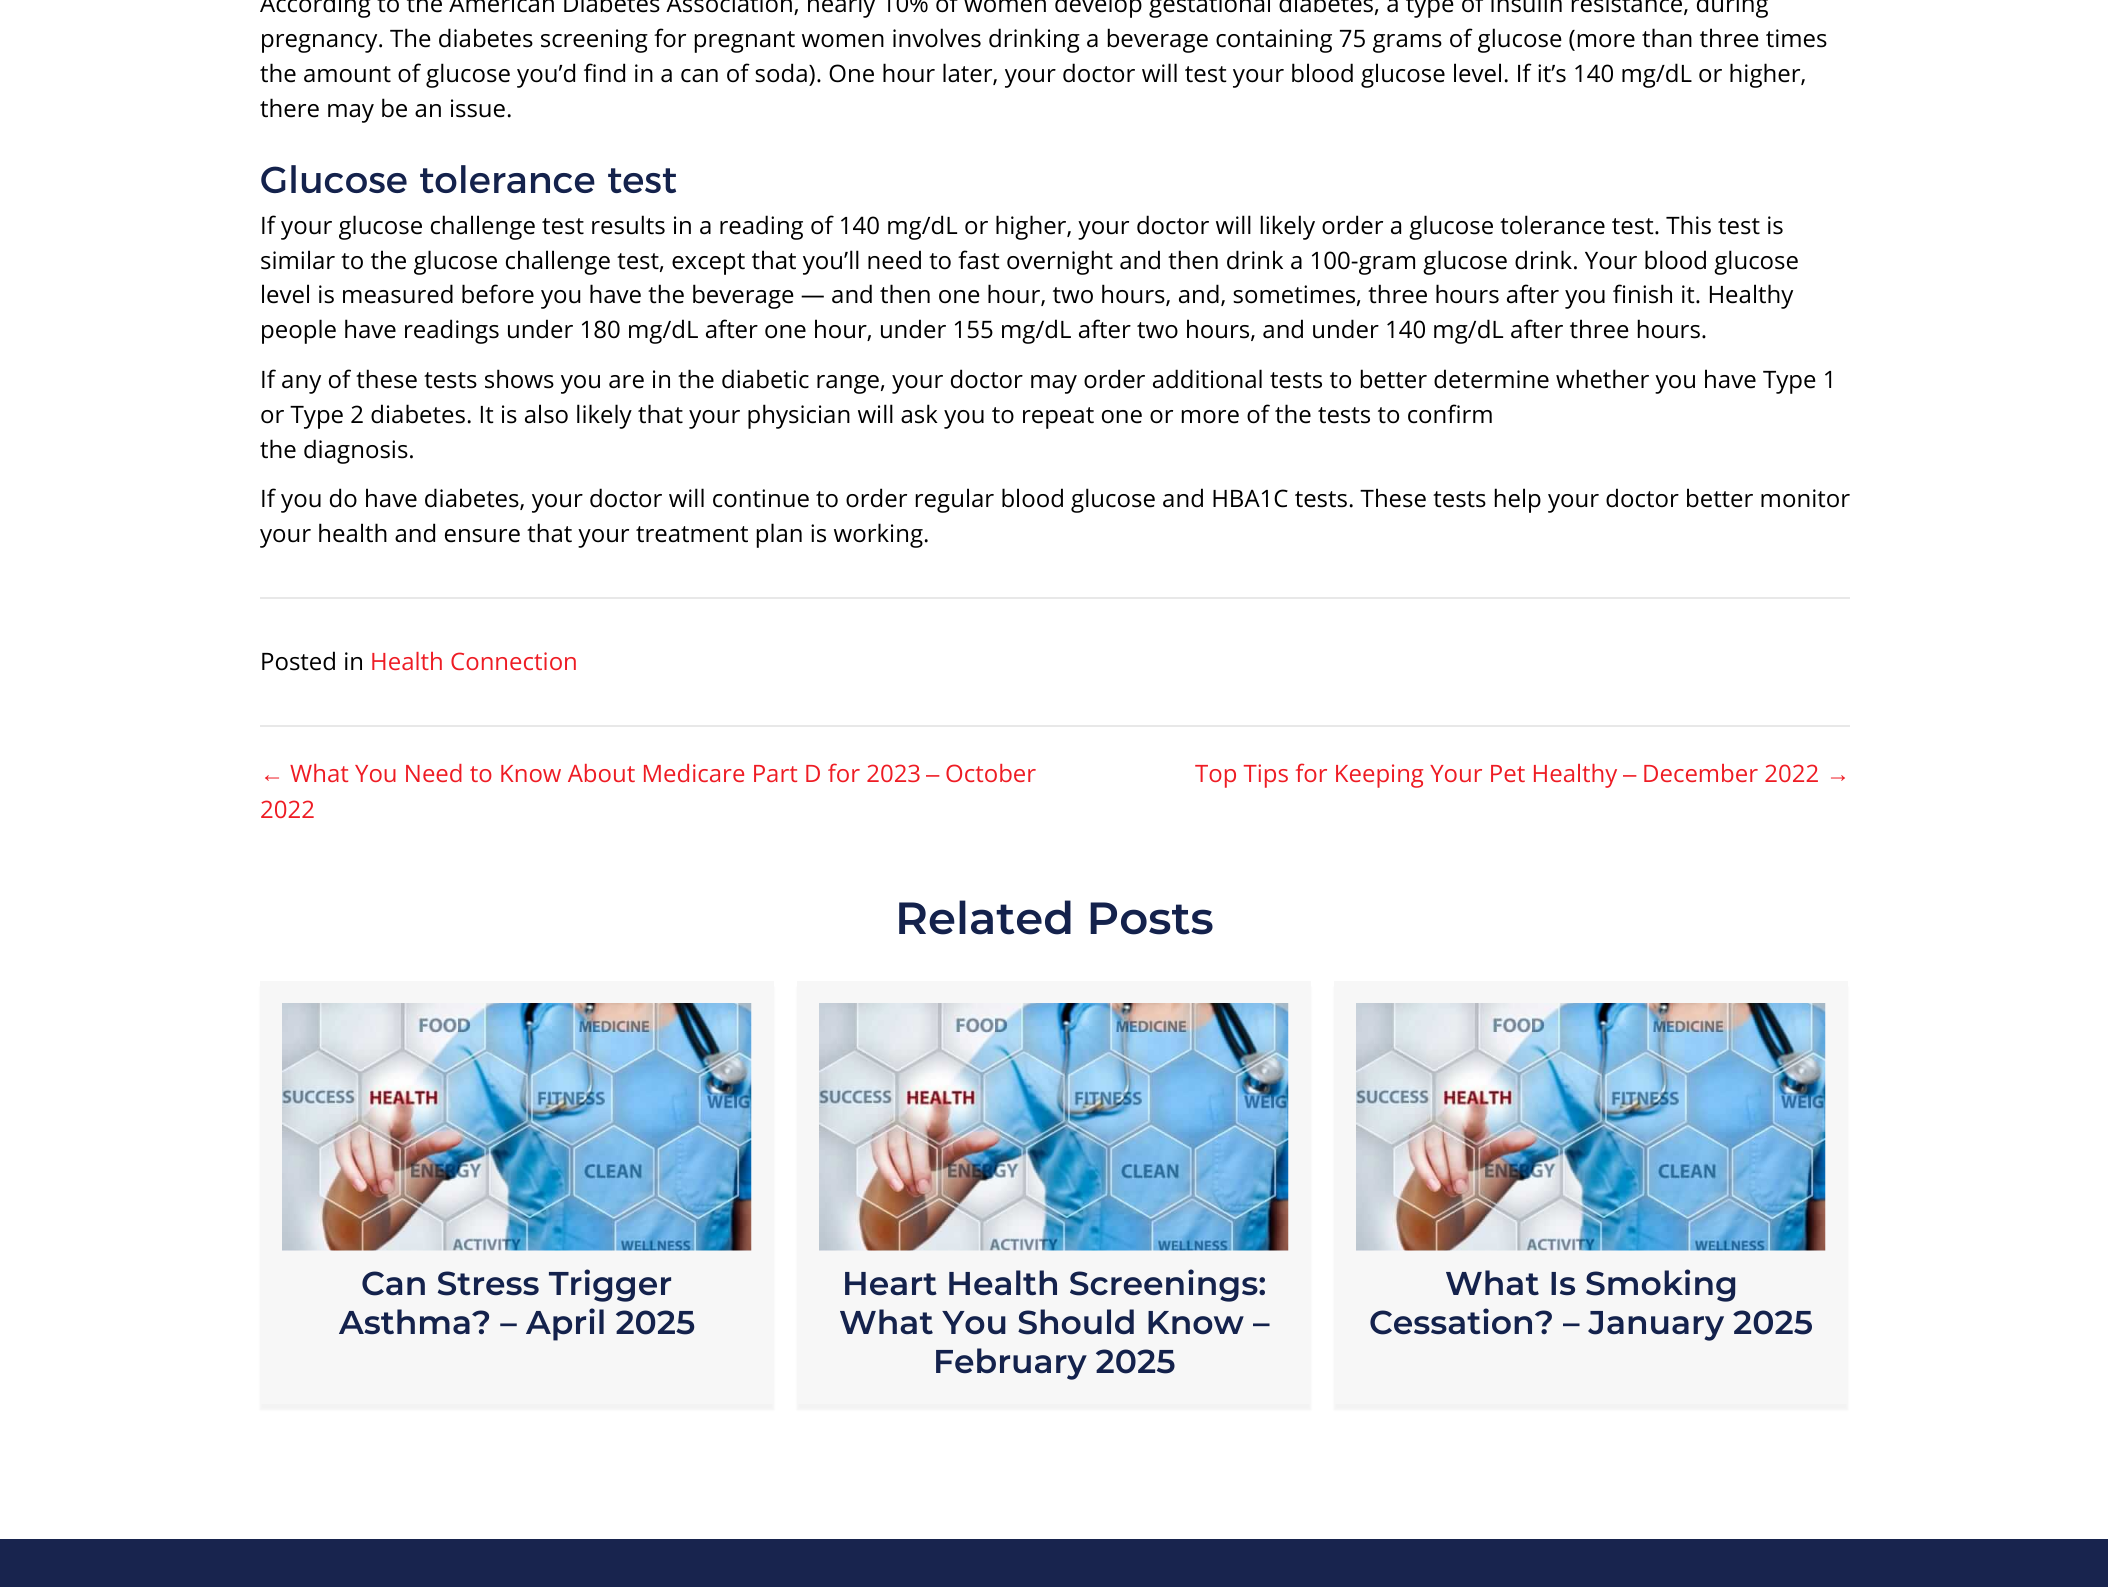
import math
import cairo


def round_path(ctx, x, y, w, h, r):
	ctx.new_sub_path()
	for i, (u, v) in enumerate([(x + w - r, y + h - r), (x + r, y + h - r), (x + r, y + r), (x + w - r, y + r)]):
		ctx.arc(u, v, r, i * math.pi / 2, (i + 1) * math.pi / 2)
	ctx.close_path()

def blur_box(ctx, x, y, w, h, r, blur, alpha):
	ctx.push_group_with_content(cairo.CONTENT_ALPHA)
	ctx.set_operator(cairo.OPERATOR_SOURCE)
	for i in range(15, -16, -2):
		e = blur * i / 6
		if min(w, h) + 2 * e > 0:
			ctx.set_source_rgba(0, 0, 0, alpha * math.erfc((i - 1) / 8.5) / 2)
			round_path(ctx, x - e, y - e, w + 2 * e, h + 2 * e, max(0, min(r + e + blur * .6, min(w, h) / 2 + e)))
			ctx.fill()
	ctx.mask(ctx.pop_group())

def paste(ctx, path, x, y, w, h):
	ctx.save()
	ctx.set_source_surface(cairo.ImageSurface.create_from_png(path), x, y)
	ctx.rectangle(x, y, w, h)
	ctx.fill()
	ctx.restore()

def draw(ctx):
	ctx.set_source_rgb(1, 1, 1)
	ctx.paint()
	ctx.select_font_face('Open Sans')
	ctx.set_font_size(24)
	ctx.set_source_rgb(0, 0, 0)
	for x, y, s in [
		(260, 12, 'According to the American Diabetes Association, nearly 10% of women develop gestational diabetes, a type of insulin resistance, during'),
		(260, 47, 'pregnancy. The diabetes screening for pregnant women involves drinking a beverage containing 75 grams of glucose (more than three times'),
		(260, 82, 'the amount of glucose you’d find in a can of soda). One hour later, your doctor will test your blood glucose level. If it’s 140 mg/dL or higher,'),
		(260, 117, 'there may be an issue.'),
	]:
		ctx.move_to(x, y)
		ctx.show_text(s)
	ctx.select_font_face('Montserrat')
	ctx.set_font_size(37.5)
	ctx.set_source_rgb(0.082, 0.133, 0.298)
	ctx.move_to(260, 193)
	ctx.show_text('Glucose tolerance test')
	ctx.select_font_face('Open Sans')
	ctx.set_font_size(24)
	ctx.set_source_rgb(0, 0, 0)
	for x, y, s in [
		(260, 234, 'If your glucose challenge test results in a reading of 140 mg/dL or higher, your doctor will likely order a glucose tolerance test. This test is'),
		(260, 269, 'similar to the glucose challenge test, except that you’ll need to fast overnight and then drink a 100-gram glucose drink. Your blood glucose'),
		(260, 303, 'level is measured before you have the beverage — and then one hour, two hours, and, sometimes, three hours after you finish it. Healthy'),
		(260, 338, 'people have readings under 180 mg/dL after one hour, under 155 mg/dL after two hours, and under 140 mg/dL after three hours.'),
		(260, 388, 'If any of these tests shows you are in the diabetic range, your doctor may order additional tests to better determine whether you have Type 1'),
		(260, 423, 'or Type 2 diabetes. It is also likely that your physician will ask you to repeat one or more of the tests to confirm'),
		(260, 458, 'the diagnosis.'),
		(260, 507, 'If you do have diabetes, your doctor will continue to order regular blood glucose and HBA1C tests. These tests help your doctor better monitor'),
		(260, 542, 'your health and ensure that your treatment plan is working.'),
	]:
		ctx.move_to(x, y)
		ctx.show_text(s)
	ctx.set_source_rgb(0.91, 0.91, 0.91)
	ctx.rectangle(260, 597, 1590, 2)
	ctx.fill()
	ctx.select_font_face('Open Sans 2')
	ctx.set_source_rgb(0, 0, 0)
	ctx.move_to(260, 670)
	ctx.show_text('Posted in')
	ctx.set_source_rgb(0.933, 0.11, 0.141)
	ctx.move_to(370, 670)
	ctx.show_text('Health Connection')
	ctx.set_source_rgb(0.91, 0.91, 0.91)
	ctx.rectangle(260, 725, 1590, 2)
	ctx.fill()
	ctx.select_font_face('Liberation Sans')
	ctx.set_source_rgb(0.933, 0.11, 0.141)
	ctx.move_to(260, 782)
	ctx.show_text('←')
	ctx.select_font_face('Open Sans 2')
	ctx.move_to(290, 782)
	ctx.show_text('What You Need to Know About Medicare Part D for 2023')
	ctx.select_font_face('Liberation Sans')
	ctx.move_to(926, 782)
	ctx.show_text('–')
	ctx.select_font_face('Open Sans 2')
	for x, y, s in [
		(945, 782, 'October'),
		(260, 818, '2022'),
		(1195, 782, 'Top Tips for Keeping Your Pet Healthy'),
	]:
		ctx.move_to(x, y)
		ctx.show_text(s)
	ctx.select_font_face('Liberation Sans')
	ctx.move_to(1623, 782)
	ctx.show_text('–')
	ctx.select_font_face('Open Sans 2')
	ctx.move_to(1642, 782)
	ctx.show_text('December 2022')
	ctx.select_font_face('Liberation Sans')
	ctx.move_to(1826, 782)
	ctx.show_text('→')
	ctx.select_font_face('Montserrat SemiBold')
	ctx.set_font_size(45)
	ctx.set_source_rgb(0.082, 0.133, 0.298)
	ctx.move_to(895, 934)
	ctx.show_text('Related Posts')
	ctx.set_source_rgb(0.773, 0.773, 0.773)
	blur_box(ctx, 260, 987, 514, 423, 0, 1, 0.2)
	ctx.set_source_rgb(0.965, 0.965, 0.965)
	ctx.rectangle(260, 981, 514, 423)
	ctx.fill()
	paste(ctx, 'media/1.png', 282, 1003, 470, 248)
	ctx.set_font_size(33)
	ctx.set_source_rgb(0.082, 0.133, 0.298)
	ctx.move_to(361, 1295)
	ctx.show_text('Can Stress Trigger')
	ctx.move_to(339, 1334)
	ctx.show_text('Asthma? – April 2025')
	ctx.set_source_rgb(0.773, 0.773, 0.773)
	blur_box(ctx, 797, 987, 514, 423, 0, 1, 0.2)
	ctx.set_source_rgb(0.965, 0.965, 0.965)
	ctx.rectangle(797, 981, 514, 423)
	ctx.fill()
	paste(ctx, 'media/1.png', 819, 1003, 470, 248)
	ctx.set_source_rgb(0.082, 0.133, 0.298)
	for x, y, s in [
		(842, 1295, 'Heart Health Screenings:'),
		(839, 1334, 'What You Should Know –'),
		(933, 1373, 'February 2025'),
	]:
		ctx.move_to(x, y)
		ctx.show_text(s)
	ctx.set_source_rgb(0.773, 0.773, 0.773)
	blur_box(ctx, 1334, 987, 514, 423, 0, 1, 0.2)
	ctx.set_source_rgb(0.965, 0.965, 0.965)
	ctx.rectangle(1334, 981, 514, 423)
	ctx.fill()
	paste(ctx, 'media/1.png', 1356, 1003, 470, 248)
	ctx.set_source_rgb(0.082, 0.133, 0.298)
	ctx.move_to(1445, 1295)
	ctx.show_text('What Is Smoking')
	ctx.move_to(1369, 1334)
	ctx.show_text('Cessation? – January 2025')
	ctx.set_source_rgb(0.094, 0.141, 0.306)
	ctx.rectangle(0, 1539, 2108, 48)
	ctx.fill()


surface = cairo.ImageSurface(cairo.FORMAT_RGB24, 2108, 1587)
ctx = cairo.Context(surface)
options = cairo.FontOptions()
options.set_hint_metrics(cairo.HINT_METRICS_OFF)
options.set_hint_style(cairo.HINT_STYLE_NONE)
ctx.set_font_options(options)
ctx.set_miter_limit(4)
draw(ctx)
surface.write_to_png('image.png')
